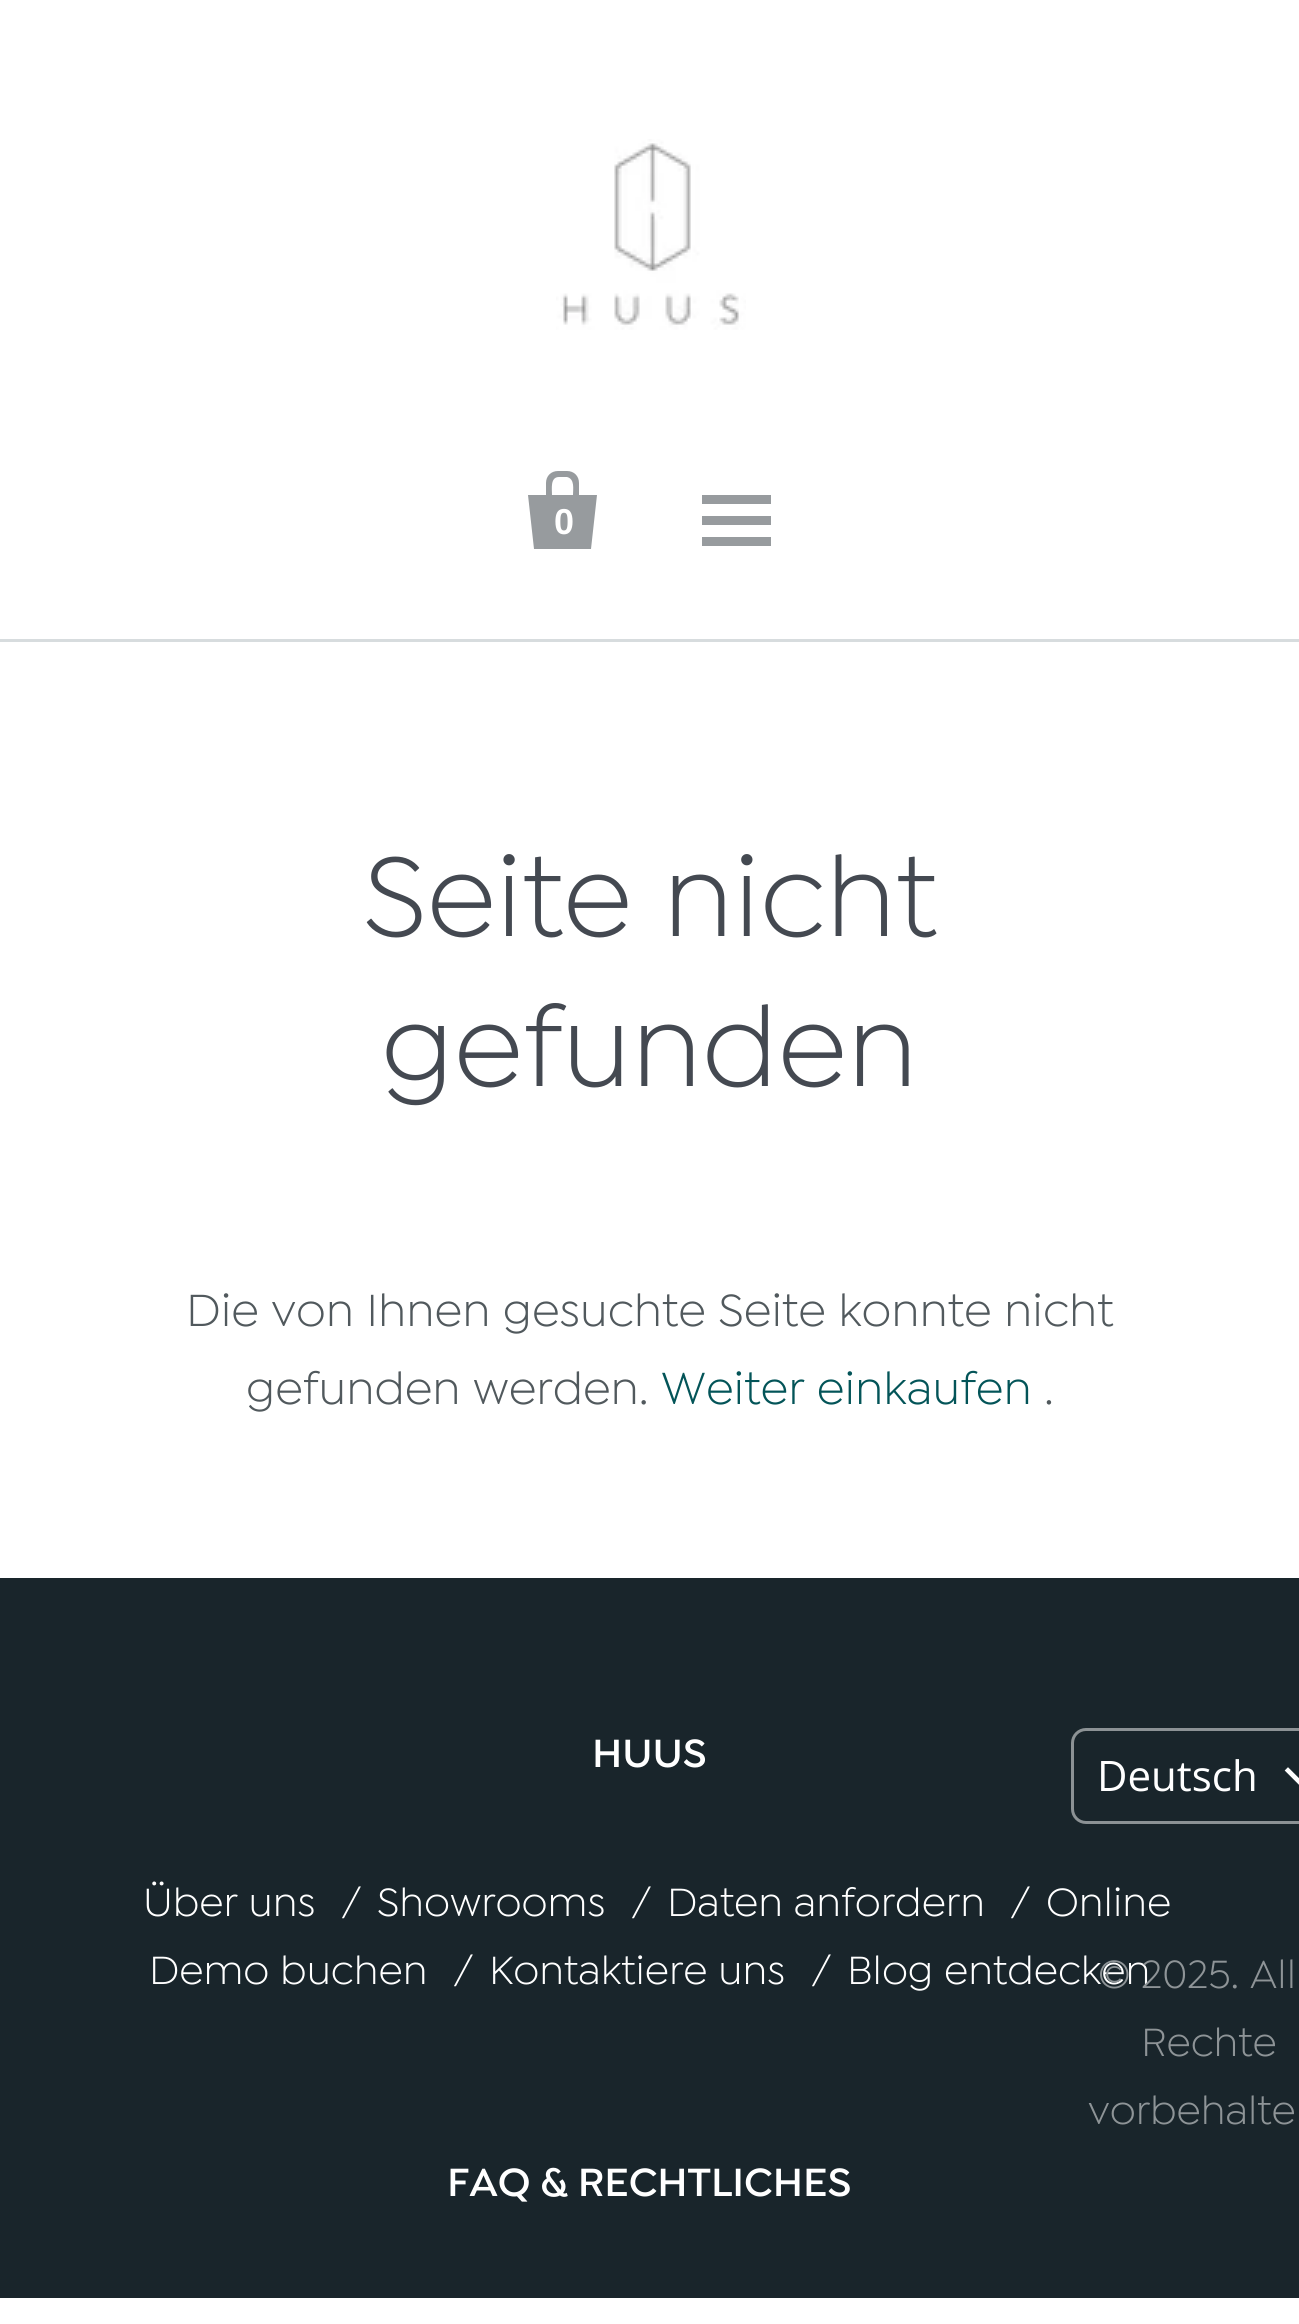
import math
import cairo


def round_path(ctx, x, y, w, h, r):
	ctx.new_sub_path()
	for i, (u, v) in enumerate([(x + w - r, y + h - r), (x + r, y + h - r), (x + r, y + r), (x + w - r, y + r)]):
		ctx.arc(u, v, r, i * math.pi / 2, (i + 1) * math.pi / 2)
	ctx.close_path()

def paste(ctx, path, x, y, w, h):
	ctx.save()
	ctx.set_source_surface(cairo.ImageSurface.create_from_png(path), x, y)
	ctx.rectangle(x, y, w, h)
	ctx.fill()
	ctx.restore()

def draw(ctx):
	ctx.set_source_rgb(1, 1, 1)
	ctx.paint()
	ctx.set_source_rgb(0.843, 0.863, 0.871)
	ctx.rectangle(0, 639, 1299, 3)
	ctx.fill()
	paste(ctx, 'media/1.png', 556, 139, 190, 191)
	ctx.set_source_rgb(0.592, 0.608, 0.62)
	ctx.new_path()
	ctx.move_to(559, 477)
	ctx.curve_to(550, 477, 552, 489, 552, 495)
	ctx.line_to(573, 495)
	ctx.curve_to(573, 489, 575, 479, 567, 477)
	ctx.close_path()
	ctx.move_to(579, 495)
	ctx.line_to(597, 495)
	ctx.line_to(591, 549)
	ctx.line_to(534, 549)
	ctx.line_to(528, 495)
	ctx.line_to(546, 495)
	ctx.line_to(546, 483)
	ctx.curve_to(546, 476, 551, 471, 558, 471)
	ctx.line_to(567, 471)
	ctx.curve_to(574, 471, 579, 476, 579, 483)
	ctx.close_path()
	ctx.fill()
	ctx.select_font_face('Liberation Sans', cairo.FONT_SLANT_NORMAL, cairo.FONT_WEIGHT_BOLD)
	ctx.set_font_size(36)
	ctx.set_source_rgb(1, 1, 1)
	ctx.move_to(554, 534)
	ctx.show_text('0')
	ctx.set_source_rgb(0.592, 0.608, 0.62)
	ctx.rectangle(702, 516, 69, 9)
	ctx.rectangle(702, 495, 69, 9)
	ctx.rectangle(702, 537, 69, 9)
	ctx.fill()
	ctx.select_font_face('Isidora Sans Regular')
	ctx.set_font_size(120)
	ctx.set_source_rgb(0.267, 0.286, 0.318)
	ctx.move_to(363, 936)
	ctx.show_text('Seite nicht')
	ctx.move_to(381, 1086)
	ctx.show_text('gefunden')
	ctx.set_font_size(48)
	ctx.set_source_rgb(0.318, 0.349, 0.365)
	ctx.move_to(186, 1326)
	ctx.show_text('Die von Ihnen gesuchte Seite konnte nicht')
	ctx.move_to(246, 1404)
	ctx.show_text('gefunden werden.')
	ctx.set_source_rgb(0.012, 0.329, 0.345)
	ctx.move_to(661, 1404)
	ctx.show_text('Weiter einkaufen')
	ctx.set_source_rgb(0.318, 0.349, 0.365)
	ctx.move_to(1044, 1404)
	ctx.show_text('.')
	ctx.set_source_rgb(0.098, 0.145, 0.169)
	ctx.rectangle(0, 1578, 1299, 720)
	ctx.fill()
	ctx.select_font_face('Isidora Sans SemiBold')
	ctx.set_font_size(42)
	ctx.set_source_rgb(1, 1, 1)
	ctx.move_to(592, 1767)
	ctx.show_text('HUUS')
	ctx.select_font_face('Isidora Sans Regular')
	for x, y, s in [
		(143, 1916, 'Über uns'),
		(341, 1916, '/'),
		(377, 1916, 'Showrooms'),
		(631, 1916, '/'),
		(667, 1916, 'Daten anfordern'),
		(1010, 1916, '/'),
		(1046, 1916, 'Online'),
		(149, 1984, 'Demo buchen'),
		(453, 1984, '/'),
		(489, 1984, 'Kontaktiere uns'),
		(811, 1984, '/'),
		(847, 1984, 'Blog entdecken'),
	]:
		ctx.move_to(x, y)
		ctx.show_text(s)
	ctx.select_font_face('Isidora Sans SemiBold')
	ctx.move_to(447, 2196)
	ctx.show_text('FAQ & RECHTLICHES')
	round_path(ctx, 1072.5, 1729.5, 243, 93, 13.5)
	ctx.set_source_rgb(0.549, 0.573, 0.584)
	ctx.set_line_width(3)
	ctx.stroke()
	ctx.select_font_face('Open Sans')
	ctx.set_source_rgb(1, 1, 1)
	ctx.move_to(1097, 1791)
	ctx.show_text('Deutsch')
	ctx.new_path()
	ctx.move_to(1299, 1781.5)
	ctx.line_to(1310, 1770.5)
	ctx.move_to(1299, 1781.5)
	ctx.line_to(1288, 1770.5)
	ctx.set_line_width(4.7)
	ctx.set_line_cap(cairo.LINE_CAP_SQUARE)
	ctx.stroke()
	ctx.select_font_face('Isidora Sans Regular')
	ctx.set_source_rgb(0.557, 0.58, 0.592)
	for x, y, s in [
		(1098, 1988, '© 2025. All'),
		(1141, 2056, 'Rechte'),
		(1088, 2124, 'vorbehalte'),
	]:
		ctx.move_to(x, y)
		ctx.show_text(s)


surface = cairo.ImageSurface(cairo.FORMAT_RGB24, 1299, 2324)
ctx = cairo.Context(surface)
options = cairo.FontOptions()
options.set_hint_metrics(cairo.HINT_METRICS_OFF)
options.set_hint_style(cairo.HINT_STYLE_NONE)
ctx.set_font_options(options)
ctx.set_miter_limit(4)
draw(ctx)
surface.write_to_png('image.png')
